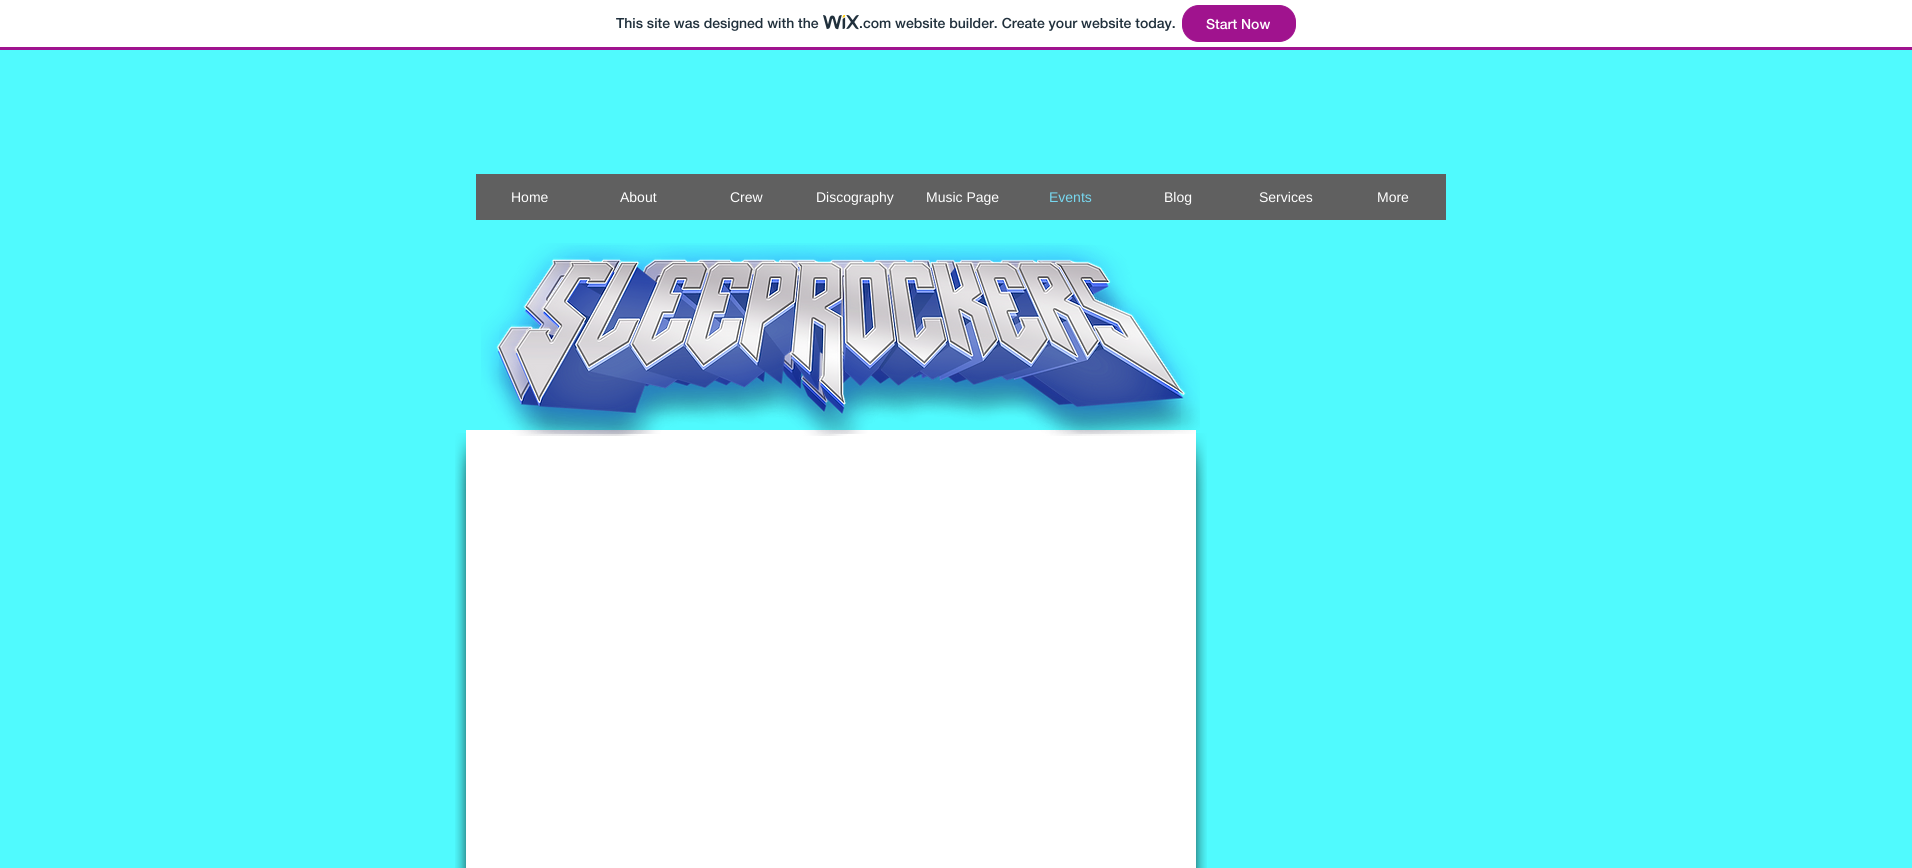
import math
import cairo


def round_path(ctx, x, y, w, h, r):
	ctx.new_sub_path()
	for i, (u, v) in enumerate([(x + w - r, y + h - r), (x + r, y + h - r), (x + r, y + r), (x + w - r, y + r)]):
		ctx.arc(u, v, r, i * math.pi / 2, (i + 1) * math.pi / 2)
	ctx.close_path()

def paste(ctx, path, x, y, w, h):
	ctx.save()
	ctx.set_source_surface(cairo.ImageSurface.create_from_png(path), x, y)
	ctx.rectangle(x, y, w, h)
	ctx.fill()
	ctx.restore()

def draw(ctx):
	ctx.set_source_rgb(1, 1, 1)
	ctx.paint()
	ctx.set_source_rgb(0.627, 0.075, 0.557)
	ctx.rectangle(0, 47, 1912, 3)
	ctx.fill()
	ctx.select_font_face('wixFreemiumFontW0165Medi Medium')
	ctx.set_font_size(14)
	ctx.set_source_rgb(0.125, 0.188, 0.235)
	ctx.move_to(616, 28)
	ctx.show_text('This site was designed with the')
	paste(ctx, 'media/1.png', 823, 15, 36, 15)
	ctx.move_to(859, 28)
	ctx.show_text('.com website builder. Create your website today.')
	ctx.set_source_rgb(0.627, 0.075, 0.557)
	round_path(ctx, 1182.5, 5.5, 113, 36, 16.5)
	ctx.fill_preserve()
	ctx.set_line_width(1)
	ctx.stroke()
	ctx.set_source_rgb(1, 1, 1)
	ctx.move_to(1206, 29)
	ctx.show_text('Start Now')
	ctx.set_source_rgb(0.314, 0.98, 0.996)
	ctx.rectangle(0, 50, 1912, 818)
	ctx.fill()
	ctx.set_source_rgb(0.376, 0.376, 0.376)
	ctx.rectangle(476, 174, 970, 46)
	ctx.fill()
	ctx.select_font_face('Liberation Sans')
	ctx.set_source_rgb(1, 1, 1)
	for x, y, s in [
		(511, 202, 'Home'),
		(620, 202, 'About'),
		(730, 202, 'Crew'),
		(816, 202, 'Discography'),
		(926, 202, 'Music Page'),
	]:
		ctx.move_to(x, y)
		ctx.show_text(s)
	ctx.set_source_rgb(0.467, 0.843, 0.937)
	ctx.move_to(1049, 202)
	ctx.show_text('Events')
	ctx.set_source_rgb(1, 1, 1)
	for x, y, s in [
		(1164, 202, 'Blog'),
		(1259, 202, 'Services'),
		(1377, 202, 'More'),
	]:
		ctx.move_to(x, y)
		ctx.show_text(s)
	ctx.rectangle(466, 430, 730, 438)
	ctx.fill()
	paste(ctx, 'media/2.png', 481, 243, 700, 193)
	paste(ctx, 'media/3.png', 455, 433, 11, 97)
	paste(ctx, 'media/4.png', 455, 530, 11, 338)
	paste(ctx, 'media/5.png', 1196, 433, 11, 97)
	paste(ctx, 'media/6.png', 1196, 530, 11, 338)
	paste(ctx, 'media/7.png', 499, 245, 701, 189)


surface = cairo.ImageSurface(cairo.FORMAT_RGB24, 1912, 868)
ctx = cairo.Context(surface)
options = cairo.FontOptions()
options.set_hint_metrics(cairo.HINT_METRICS_OFF)
options.set_hint_style(cairo.HINT_STYLE_NONE)
ctx.set_font_options(options)
ctx.set_miter_limit(4)
draw(ctx)
surface.write_to_png('image.png')
